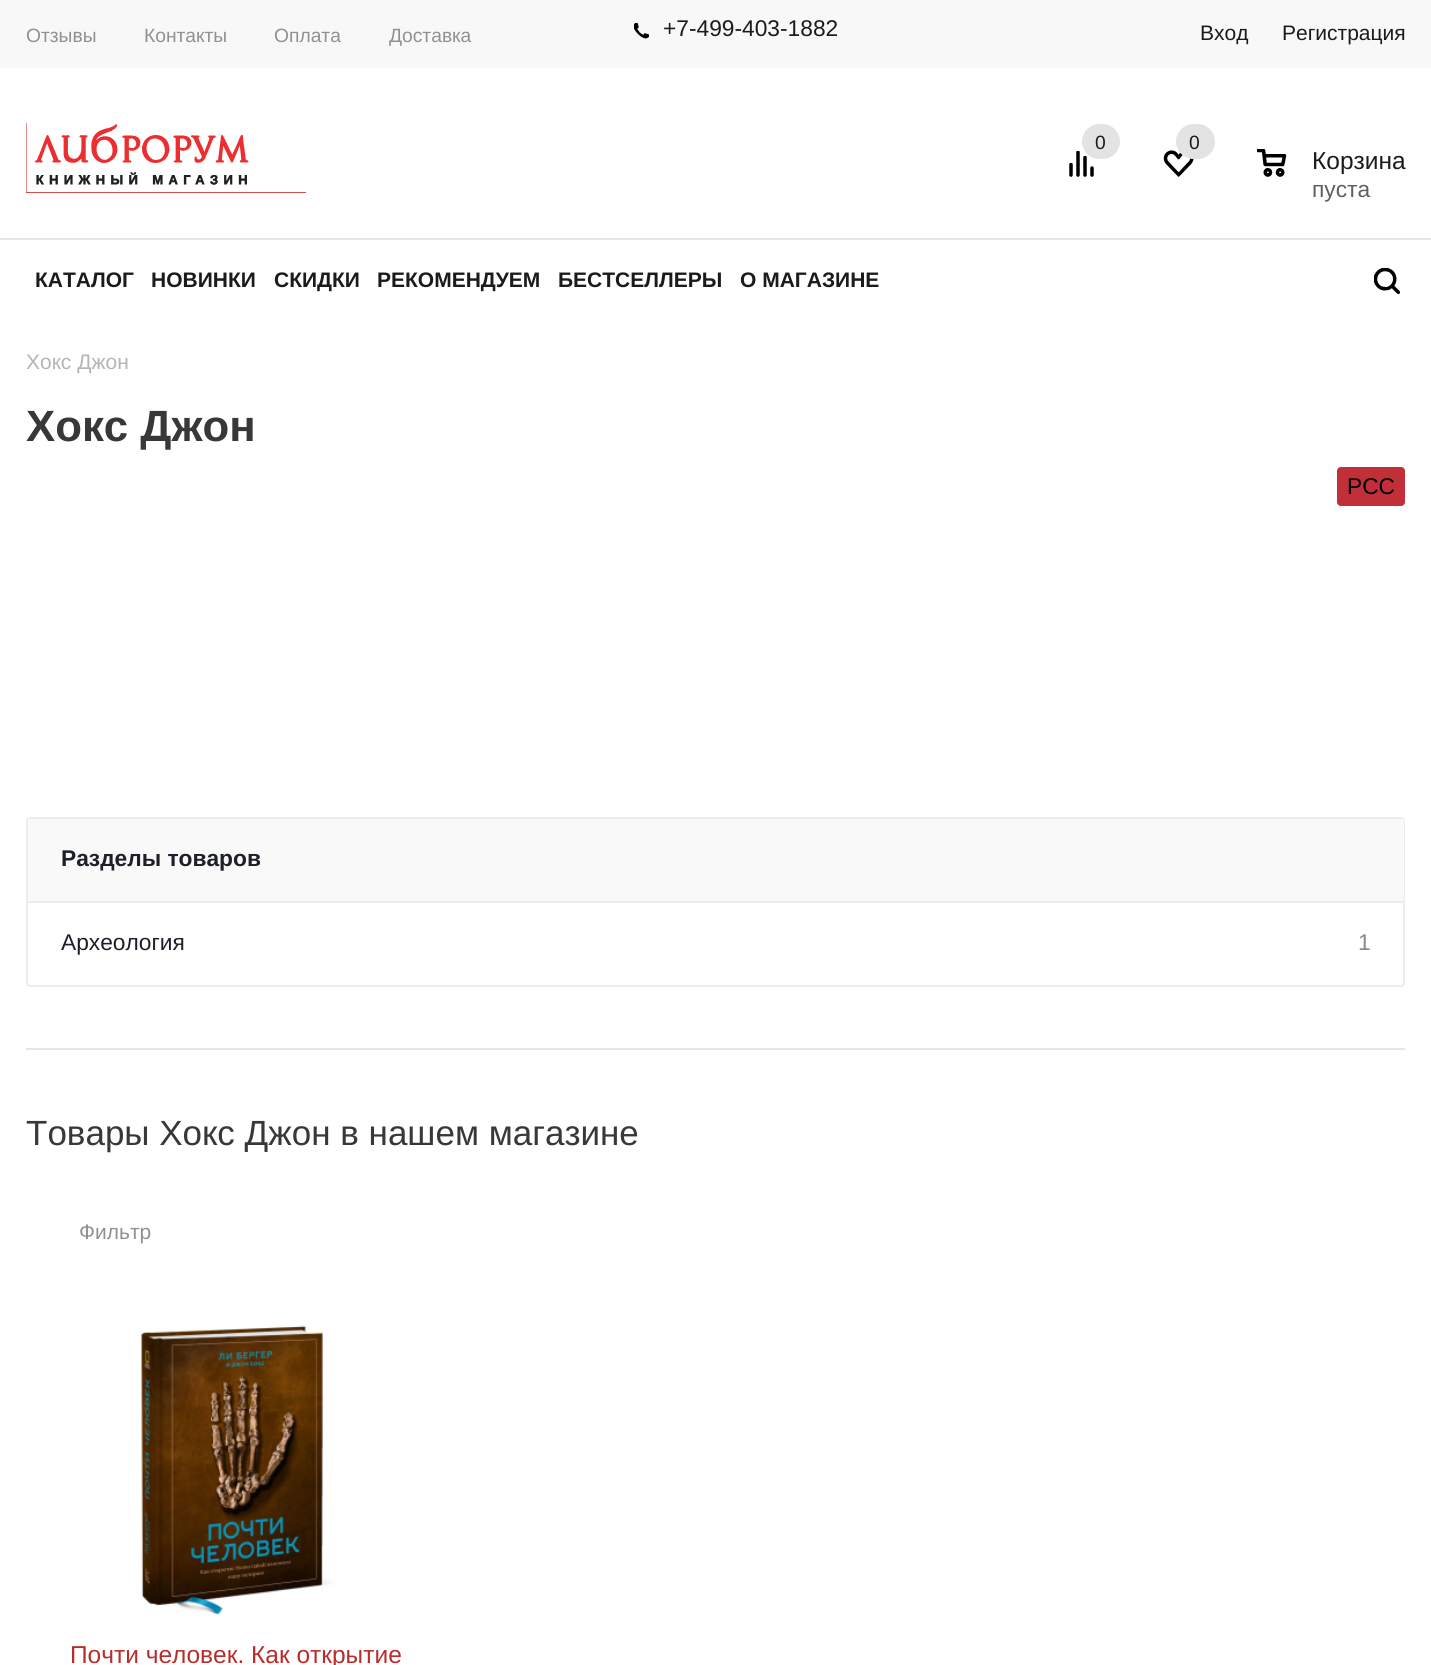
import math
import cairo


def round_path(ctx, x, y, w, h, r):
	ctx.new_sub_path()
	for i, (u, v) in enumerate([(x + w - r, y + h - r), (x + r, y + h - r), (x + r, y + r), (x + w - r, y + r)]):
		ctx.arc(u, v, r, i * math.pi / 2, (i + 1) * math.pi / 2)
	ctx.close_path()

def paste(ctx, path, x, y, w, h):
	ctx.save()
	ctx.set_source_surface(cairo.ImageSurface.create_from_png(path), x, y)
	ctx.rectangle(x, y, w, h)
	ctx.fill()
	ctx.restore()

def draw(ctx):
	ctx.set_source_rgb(1, 1, 1)
	ctx.paint()
	ctx.set_source_rgb(0.969, 0.969, 0.976)
	ctx.rectangle(0, 0, 1431, 68)
	ctx.fill()
	ctx.select_font_face('Liberation Sans')
	ctx.set_font_size(19.25)
	ctx.set_source_rgb(0.569, 0.569, 0.569)
	for x, y, s in [
		(26, 42, 'Отзывы'),
		(144, 42, 'Контакты'),
		(274, 42, 'Оплата'),
		(389, 42, 'Доставка'),
	]:
		ctx.move_to(x, y)
		ctx.show_text(s)
	paste(ctx, 'media/1.png', 634, 23, 15, 16)
	ctx.set_font_size(22.75)
	ctx.set_source_rgb(0.114, 0.102, 0.102)
	ctx.move_to(663, 36)
	ctx.show_text('+7-499-403-1882')
	ctx.set_font_size(21)
	ctx.move_to(1200, 40)
	ctx.show_text('Вход')
	ctx.move_to(1282, 40)
	ctx.show_text('Регистрация')
	ctx.set_source_rgb(0.898, 0.898, 0.898)
	ctx.rectangle(0, 238, 1431, 2)
	ctx.fill()
	ctx.set_source_rgb(0.8, 0.2, 0.2)
	ctx.rectangle(26, 123, 280, 70)
	ctx.fill()
	paste(ctx, 'media/2.png', 26, 123, 280, 70)
	paste(ctx, 'media/3.png', 1069, 151, 25, 26)
	ctx.set_source_rgb(0.89, 0.89, 0.89)
	round_path(ctx, 1082, 124, 38, 35, 17.5)
	ctx.fill()
	ctx.set_font_size(19.25)
	ctx.set_source_rgb(0.114, 0.102, 0.102)
	ctx.move_to(1095, 149)
	ctx.show_text('0')
	paste(ctx, 'media/4.png', 1163, 150, 31, 27)
	ctx.set_source_rgb(0.89, 0.89, 0.89)
	round_path(ctx, 1176, 124, 39, 35, 17.5)
	ctx.fill()
	ctx.set_source_rgb(0.114, 0.102, 0.102)
	ctx.move_to(1189, 149)
	ctx.show_text('0')
	paste(ctx, 'media/5.png', 1257, 149, 30, 28)
	ctx.set_font_size(24.5)
	ctx.move_to(1312, 169)
	ctx.show_text('Корзина')
	ctx.set_font_size(22.75)
	ctx.set_source_rgb(0.373, 0.373, 0.373)
	ctx.move_to(1312, 197)
	ctx.show_text('пуста')
	ctx.select_font_face('Liberation Sans', cairo.FONT_SLANT_NORMAL, cairo.FONT_WEIGHT_BOLD)
	ctx.set_font_size(21)
	ctx.set_source_rgb(0.114, 0.102, 0.102)
	for x, y, s in [
		(35, 287, 'КАТАЛОГ'),
		(151, 287, 'НОВИНКИ'),
		(274, 287, 'СКИДКИ'),
		(377, 287, 'РЕКОМЕНДУЕМ'),
		(558, 287, 'БЕСТСЕЛЛЕРЫ'),
		(740, 287, 'О МАГАЗИНЕ'),
	]:
		ctx.move_to(x, y)
		ctx.show_text(s)
	paste(ctx, 'media/6.png', 1374, 268, 26, 26)
	ctx.select_font_face('Liberation Sans')
	ctx.set_source_rgb(0.714, 0.71, 0.71)
	ctx.move_to(26, 369)
	ctx.show_text('Хокс Джон')
	ctx.select_font_face('Liberation Sans', cairo.FONT_SLANT_NORMAL, cairo.FONT_WEIGHT_BOLD)
	ctx.set_font_size(43.75)
	ctx.set_source_rgb(0.22, 0.22, 0.22)
	ctx.move_to(26, 441)
	ctx.show_text('Хокс Джон')
	ctx.set_source_rgb(0.757, 0.184, 0.22)
	round_path(ctx, 1337, 467, 68, 39, 4)
	ctx.fill()
	ctx.select_font_face('Liberation Sans')
	ctx.set_font_size(22.75)
	ctx.set_source_rgb(0, 0, 0)
	ctx.move_to(1347, 494)
	ctx.show_text('РСС')
	round_path(ctx, 27, 818, 1377, 168, 3)
	ctx.set_source_rgb(0.918, 0.922, 0.925)
	ctx.stroke()
	ctx.set_source_rgb(0.976, 0.976, 0.976)
	ctx.rectangle(28, 819, 1376, 82)
	ctx.fill()
	ctx.set_source_rgb(0.918, 0.922, 0.925)
	ctx.rectangle(28, 901, 1376, 2)
	ctx.fill()
	ctx.select_font_face('Liberation Sans', cairo.FONT_SLANT_NORMAL, cairo.FONT_WEIGHT_BOLD)
	ctx.set_source_rgb(0.114, 0.125, 0.161)
	ctx.move_to(61, 866)
	ctx.show_text('Разделы товаров')
	ctx.select_font_face('Liberation Sans')
	ctx.move_to(61, 950)
	ctx.show_text('Археология')
	ctx.set_source_rgb(0.533, 0.533, 0.533)
	ctx.move_to(1358, 950)
	ctx.show_text('1')
	ctx.set_source_rgb(0.898, 0.898, 0.898)
	ctx.rectangle(26, 1048, 1379, 2)
	ctx.fill()
	ctx.set_font_size(35)
	ctx.set_source_rgb(0.22, 0.22, 0.22)
	ctx.move_to(26, 1145)
	ctx.show_text('Товары Хокс Джон в нашем магазине')
	ctx.set_font_size(21)
	ctx.set_source_rgb(0.569, 0.569, 0.569)
	ctx.move_to(79, 1239)
	ctx.show_text('Фильтр')
	paste(ctx, 'media/7.png', 140, 1325, 195, 290)
	ctx.set_font_size(24.5)
	ctx.set_source_rgb(0.725, 0.176, 0.176)
	ctx.move_to(70, 1663)
	ctx.show_text('Почти человек. Как открытие')


surface = cairo.ImageSurface(cairo.FORMAT_RGB24, 1431, 1665)
ctx = cairo.Context(surface)
options = cairo.FontOptions()
options.set_hint_metrics(cairo.HINT_METRICS_OFF)
options.set_hint_style(cairo.HINT_STYLE_NONE)
ctx.set_font_options(options)
ctx.set_miter_limit(4)
draw(ctx)
surface.write_to_png('image.png')
